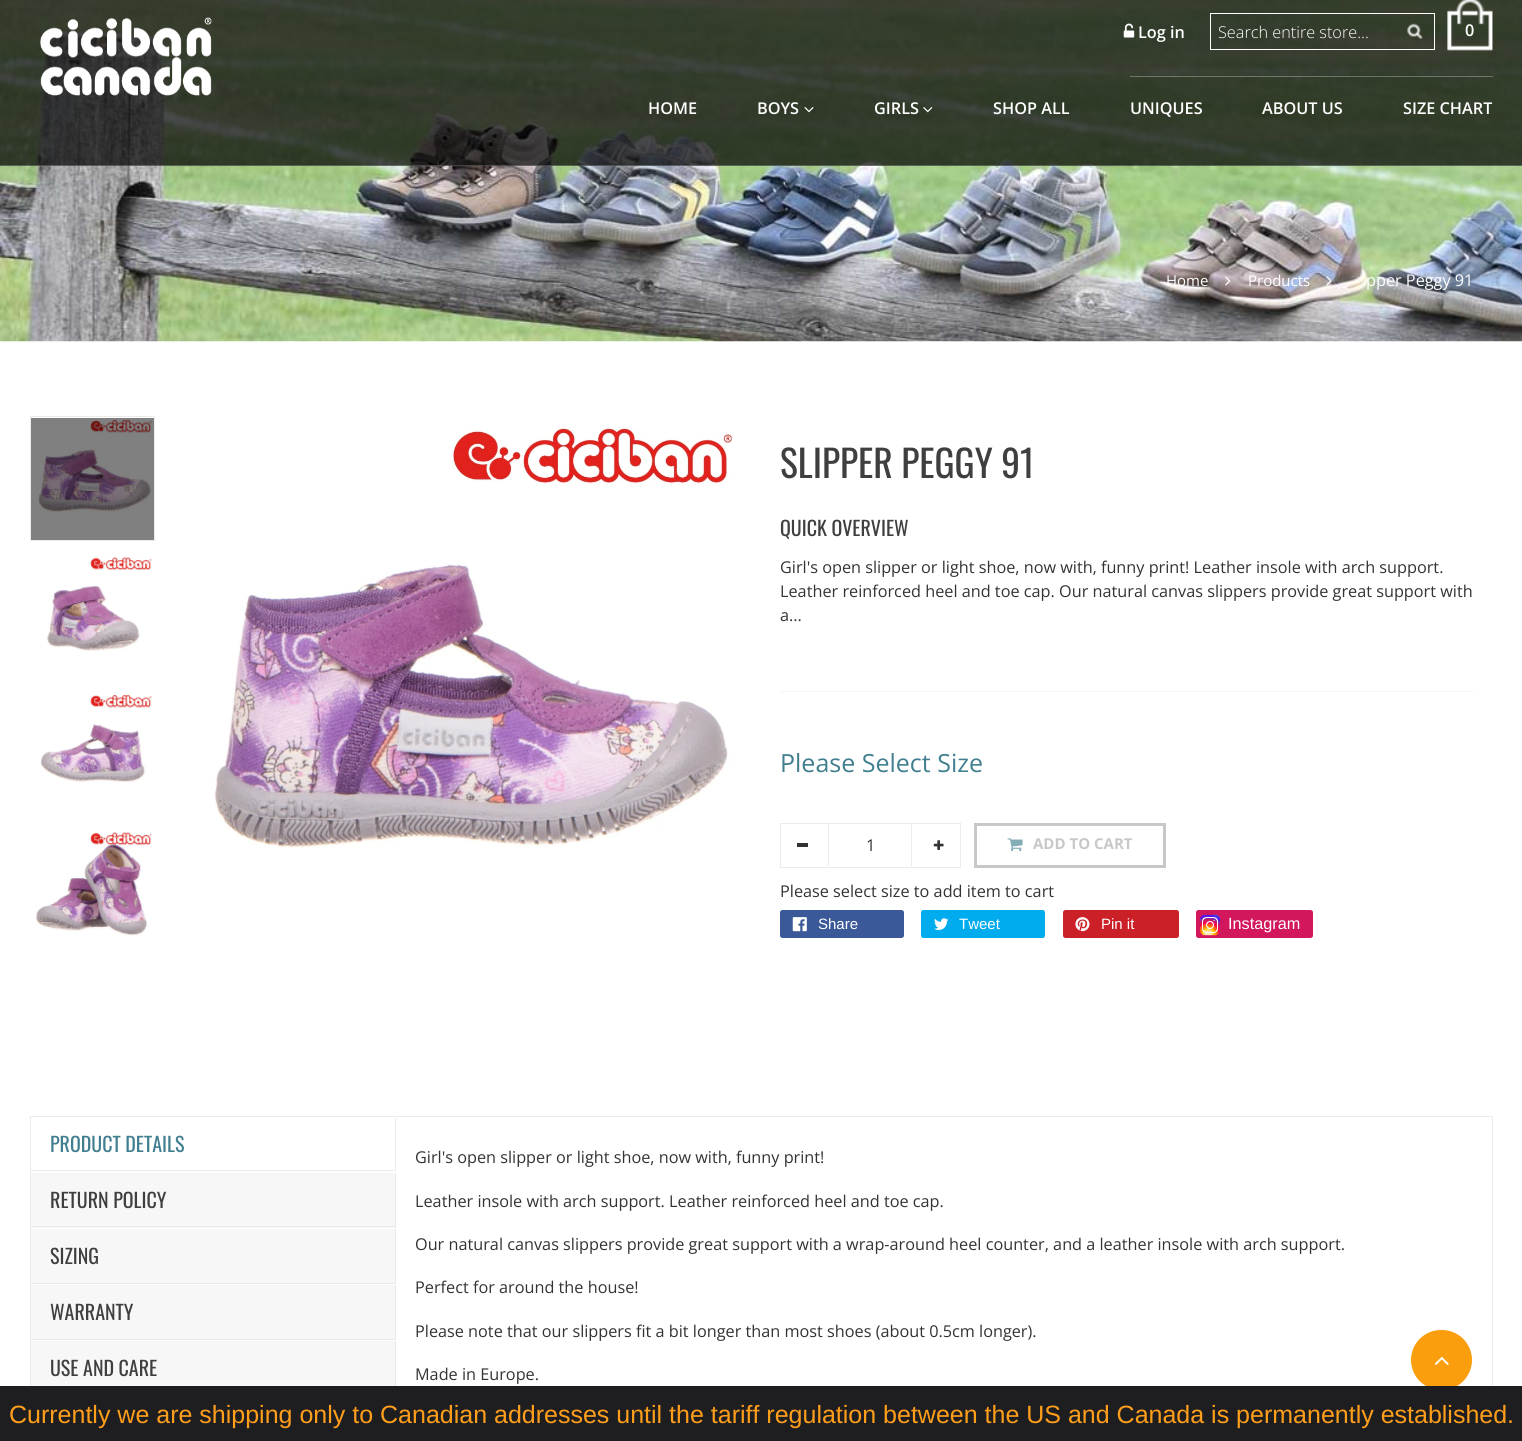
import math
import cairo


def round_path(ctx, x, y, w, h, r):
	ctx.new_sub_path()
	for i, (u, v) in enumerate([(x + w - r, y + h - r), (x + r, y + h - r), (x + r, y + r), (x + w - r, y + r)]):
		ctx.arc(u, v, r, i * math.pi / 2, (i + 1) * math.pi / 2)
	ctx.close_path()

def paste(ctx, path, x, y, w, h):
	ctx.save()
	ctx.set_source_surface(cairo.ImageSurface.create_from_png(path), x, y)
	ctx.rectangle(x, y, w, h)
	ctx.fill()
	ctx.restore()

def draw(ctx):
	ctx.set_source_rgb(1, 1, 1)
	ctx.paint()
	paste(ctx, 'media/7.png', 0, 0, 1522, 342)
	ctx.set_source_rgba(0, 0, 0, 0.71)
	ctx.rectangle(0, 0, 1522, 166)
	ctx.fill()
	ctx.set_source_rgba(1, 1, 1, 0.2)
	ctx.rectangle(0, 165, 1522, 1)
	ctx.fill()
	paste(ctx, 'media/1.png', 40, 17, 172, 79)
	ctx.set_source_rgba(1, 1, 1, 0.3)
	ctx.rectangle(1130, 76, 363, 1)
	ctx.fill()
	paste(ctx, 'media/2.png', 1123, 23, 12, 15)
	ctx.select_font_face('Open Sans SemiBold')
	ctx.set_font_size(16.25)
	ctx.set_source_rgb(1, 1, 1)
	ctx.move_to(1138, 38)
	ctx.show_text('Log in')
	ctx.rectangle(1210.5, 13.5, 224, 36)
	ctx.set_line_width(1)
	ctx.stroke()
	ctx.select_font_face('Open Sans Light')
	ctx.move_to(1218, 38)
	ctx.show_text('Search entire store...')
	paste(ctx, 'media/3.png', 1407, 23, 16, 16)
	paste(ctx, 'media/4.png', 1447, 0, 46, 51)
	ctx.select_font_face('Open Sans SemiBold')
	for x, y, s in [
		(1465, 36, '0'),
		(648, 114, 'HOME'),
		(757, 114, 'BOYS'),
	]:
		ctx.move_to(x, y)
		ctx.show_text(s)
	paste(ctx, 'media/5.png', 804, 107, 10, 6)
	ctx.move_to(874, 114)
	ctx.show_text('GIRLS')
	paste(ctx, 'media/6.png', 923, 107, 10, 6)
	for x, y, s in [
		(993, 114, 'SHOP ALL'),
		(1130, 114, 'UNIQUES'),
		(1262, 114, 'ABOUT US'),
		(1403, 114, 'SIZE CHART'),
	]:
		ctx.move_to(x, y)
		ctx.show_text(s)
	ctx.set_source_rgb(0.502, 0.502, 0.502)
	ctx.rectangle(31, 418, 123, 122)
	ctx.fill()
	ctx.select_font_face('Open Sans')
	ctx.set_font_size(15)
	ctx.set_source_rgb(1, 1, 1)
	ctx.move_to(1166, 286)
	ctx.show_text('Home')
	paste(ctx, 'media/8.png', 1225, 276, 6, 10)
	ctx.move_to(1248, 286)
	ctx.show_text('Products')
	paste(ctx, 'media/9.png', 1326, 276, 6, 10)
	ctx.set_font_size(16.25)
	ctx.move_to(1366, 286)
	ctx.show_text('pper Peggy 91')
	ctx.rectangle(30.5, 416.5, 124, 124)
	ctx.set_source_rgb(0.918, 0.918, 0.918)
	ctx.stroke()
	paste(ctx, 'media/10.png', 38, 419, 115, 93)
	paste(ctx, 'media/11.png', 47, 557, 106, 94)
	paste(ctx, 'media/12.png', 40, 695, 112, 87)
	paste(ctx, 'media/13.png', 36, 832, 117, 104)
	paste(ctx, 'media/14.png', 214, 426, 520, 422)
	ctx.select_font_face('Oswald')
	ctx.set_font_size(37.5)
	ctx.set_source_rgb(0.247, 0.247, 0.247)
	ctx.move_to(780, 478)
	ctx.show_text('SLIPPER PEGGY 91')
	ctx.set_font_size(20)
	ctx.move_to(780, 536)
	ctx.show_text('QUICK OVERVIEW')
	ctx.select_font_face('Open Sans')
	ctx.set_font_size(16.25)
	ctx.set_source_rgb(0.2, 0.2, 0.2)
	for x, y, s in [
		(780, 573, 'Girl\'s open slipper or light shoe, now with‚ funny print! Leather insole with arch support.'),
		(780, 597, 'Leather reinforced heel and toe cap. Our natural canvas slippers provide great support with'),
		(780, 621, 'a...'),
	]:
		ctx.move_to(x, y)
		ctx.show_text(s)
	ctx.set_font_size(25)
	ctx.set_source_rgb(0.255, 0.498, 0.565)
	ctx.move_to(780, 772)
	ctx.show_text('Please Select Size')
	ctx.rectangle(780.5, 823.5, 180, 44)
	ctx.set_source_rgb(0.918, 0.918, 0.918)
	ctx.stroke()
	ctx.set_source_rgb(0.2, 0.2, 0.2)
	ctx.rectangle(797, 843, 11, 4)
	ctx.fill()
	ctx.set_source_rgb(0.918, 0.918, 0.918)
	ctx.rectangle(911, 824, 1, 42)
	ctx.rectangle(828, 824, 1, 42)
	ctx.fill()
	ctx.set_font_size(16.25)
	ctx.set_source_rgb(0.2, 0.2, 0.2)
	ctx.move_to(866, 851)
	ctx.show_text('1')
	paste(ctx, 'media/15.png', 933, 840, 11, 10)
	ctx.set_source_rgb(0.961, 0.961, 0.961)
	ctx.rectangle(780, 691, 694, 1)
	ctx.fill()
	ctx.rectangle(975.5, 824.5, 189, 42)
	ctx.set_source_rgb(0.784, 0.784, 0.784)
	ctx.set_line_width(3)
	ctx.stroke()
	paste(ctx, 'media/16.png', 1007, 838, 16, 14)
	ctx.select_font_face('Open Sans', cairo.FONT_SLANT_NORMAL, cairo.FONT_WEIGHT_BOLD)
	ctx.set_font_size(15)
	ctx.move_to(1033, 849)
	ctx.show_text('ADD TO CART')
	ctx.select_font_face('Open Sans')
	ctx.set_font_size(16.25)
	ctx.set_source_rgb(0.2, 0.2, 0.2)
	ctx.move_to(780, 897)
	ctx.show_text('Please select size to add item to cart')
	ctx.set_source_rgb(0.231, 0.349, 0.596)
	round_path(ctx, 780, 910, 124, 28, 2.5)
	ctx.fill()
	paste(ctx, 'media/17.png', 792, 917, 15, 15)
	ctx.select_font_face('Liberation Sans')
	ctx.set_font_size(15)
	ctx.set_source_rgb(1, 1, 1)
	ctx.move_to(818, 929)
	ctx.show_text('Share')
	ctx.set_source_rgb(0, 0.675, 0.929)
	round_path(ctx, 921, 910, 124, 28, 2.5)
	ctx.fill()
	paste(ctx, 'media/18.png', 934, 918, 15, 12)
	ctx.set_source_rgb(1, 1, 1)
	ctx.move_to(959, 929)
	ctx.show_text('Tweet')
	ctx.set_source_rgb(0.796, 0.125, 0.153)
	round_path(ctx, 1063, 910, 116, 28, 2.5)
	ctx.fill()
	paste(ctx, 'media/19.png', 1075, 917, 15, 15)
	ctx.set_source_rgb(1, 1, 1)
	ctx.move_to(1101, 929)
	ctx.show_text('Pin it')
	ctx.set_source_rgb(0.824, 0.09, 0.365)
	round_path(ctx, 1196, 910, 117, 28, 2.5)
	ctx.fill()
	paste(ctx, 'media/20.png', 1199, 914, 22, 22)
	ctx.set_font_size(16.25)
	ctx.set_source_rgb(1, 1, 1)
	ctx.move_to(1228, 929)
	ctx.show_text('Instagram')
	ctx.rectangle(30.5, 1116.5, 1462, 312)
	ctx.set_source_rgb(0.918, 0.918, 0.918)
	ctx.set_line_width(1)
	ctx.stroke()
	ctx.rectangle(395, 1118, 1, 53)
	ctx.fill()
	ctx.rectangle(31, 1170, 365, 1)
	ctx.fill()
	ctx.select_font_face('Oswald')
	ctx.set_font_size(20)
	ctx.set_source_rgb(0.255, 0.498, 0.565)
	ctx.move_to(50, 1152)
	ctx.show_text('PRODUCT DETAILS')
	ctx.set_source_rgb(0.965, 0.965, 0.965)
	ctx.rectangle(31, 1173, 364, 55)
	ctx.fill()
	ctx.set_source_rgb(0.918, 0.918, 0.918)
	ctx.rectangle(395, 1173, 1, 55)
	ctx.rectangle(31, 1226, 365, 1)
	ctx.fill()
	ctx.set_source_rgb(0.247, 0.247, 0.247)
	ctx.move_to(50, 1208)
	ctx.show_text('RETURN POLICY')
	ctx.set_source_rgb(0.965, 0.965, 0.965)
	ctx.rectangle(31, 1229, 364, 54)
	ctx.fill()
	ctx.set_source_rgb(0.918, 0.918, 0.918)
	ctx.rectangle(395, 1229, 1, 55)
	ctx.rectangle(31, 1283, 365, 1)
	ctx.fill()
	ctx.set_source_rgb(0.247, 0.247, 0.247)
	ctx.move_to(50, 1264)
	ctx.show_text('SIZING')
	ctx.set_source_rgb(0.965, 0.965, 0.965)
	ctx.rectangle(31, 1285, 364, 54)
	ctx.fill()
	ctx.set_source_rgb(0.918, 0.918, 0.918)
	ctx.rectangle(395, 1285, 1, 55)
	ctx.rectangle(31, 1339, 365, 1)
	ctx.fill()
	ctx.set_source_rgb(0.247, 0.247, 0.247)
	ctx.move_to(50, 1320)
	ctx.show_text('WARRANTY')
	ctx.set_source_rgb(0.965, 0.965, 0.965)
	ctx.rectangle(31, 1341, 364, 45)
	ctx.fill()
	ctx.set_source_rgb(0.918, 0.918, 0.918)
	ctx.rectangle(395, 1341, 1, 45)
	ctx.fill()
	ctx.set_source_rgb(0.247, 0.247, 0.247)
	ctx.move_to(50, 1376)
	ctx.show_text('USE AND CARE')
	ctx.select_font_face('Open Sans')
	ctx.set_font_size(16.25)
	ctx.set_source_rgb(0.2, 0.2, 0.2)
	for x, y, s in [
		(415, 1163, 'Girl\'s open slipper or light shoe, now with‚ funny print!'),
		(415, 1207, 'Leather insole with arch support. Leather reinforced heel and toe cap.'),
		(415, 1250, 'Our natural canvas slippers provide great support with a wrap-around heel counter, and a leather insole with arch support.'),
		(415, 1293, 'Perfect for around the house!'),
		(415, 1337, 'Please note that our slippers fit a bit longer than most shoes (about 0.5cm longer).'),
		(415, 1380, 'Made in Europe.'),
	]:
		ctx.move_to(x, y)
		ctx.show_text(s)
	ctx.set_source_rgb(0.98, 0.62, 0.051)
	round_path(ctx, 1410.5, 1329.5, 62, 61, 30.5)
	ctx.fill_preserve()
	ctx.set_source_rgb(1, 1, 1)
	ctx.stroke()
	paste(ctx, 'media/21.png', 1434, 1356, 15, 9)
	ctx.set_source_rgb(0.118, 0.118, 0.125)
	ctx.rectangle(0, 1386, 1522, 55)
	ctx.fill()
	ctx.select_font_face('Liberation Sans')
	ctx.set_font_size(25)
	ctx.set_source_rgb(1, 0.62, 0.106)
	ctx.move_to(9, 1423)
	ctx.show_text('Currently we are shipping only to Canadian addresses until the tariff regulation between the US and Canada is permanently established.')


surface = cairo.ImageSurface(cairo.FORMAT_RGB24, 1522, 1441)
ctx = cairo.Context(surface)
options = cairo.FontOptions()
options.set_hint_metrics(cairo.HINT_METRICS_OFF)
options.set_hint_style(cairo.HINT_STYLE_NONE)
ctx.set_font_options(options)
ctx.set_miter_limit(4)
draw(ctx)
surface.write_to_png('image.png')
